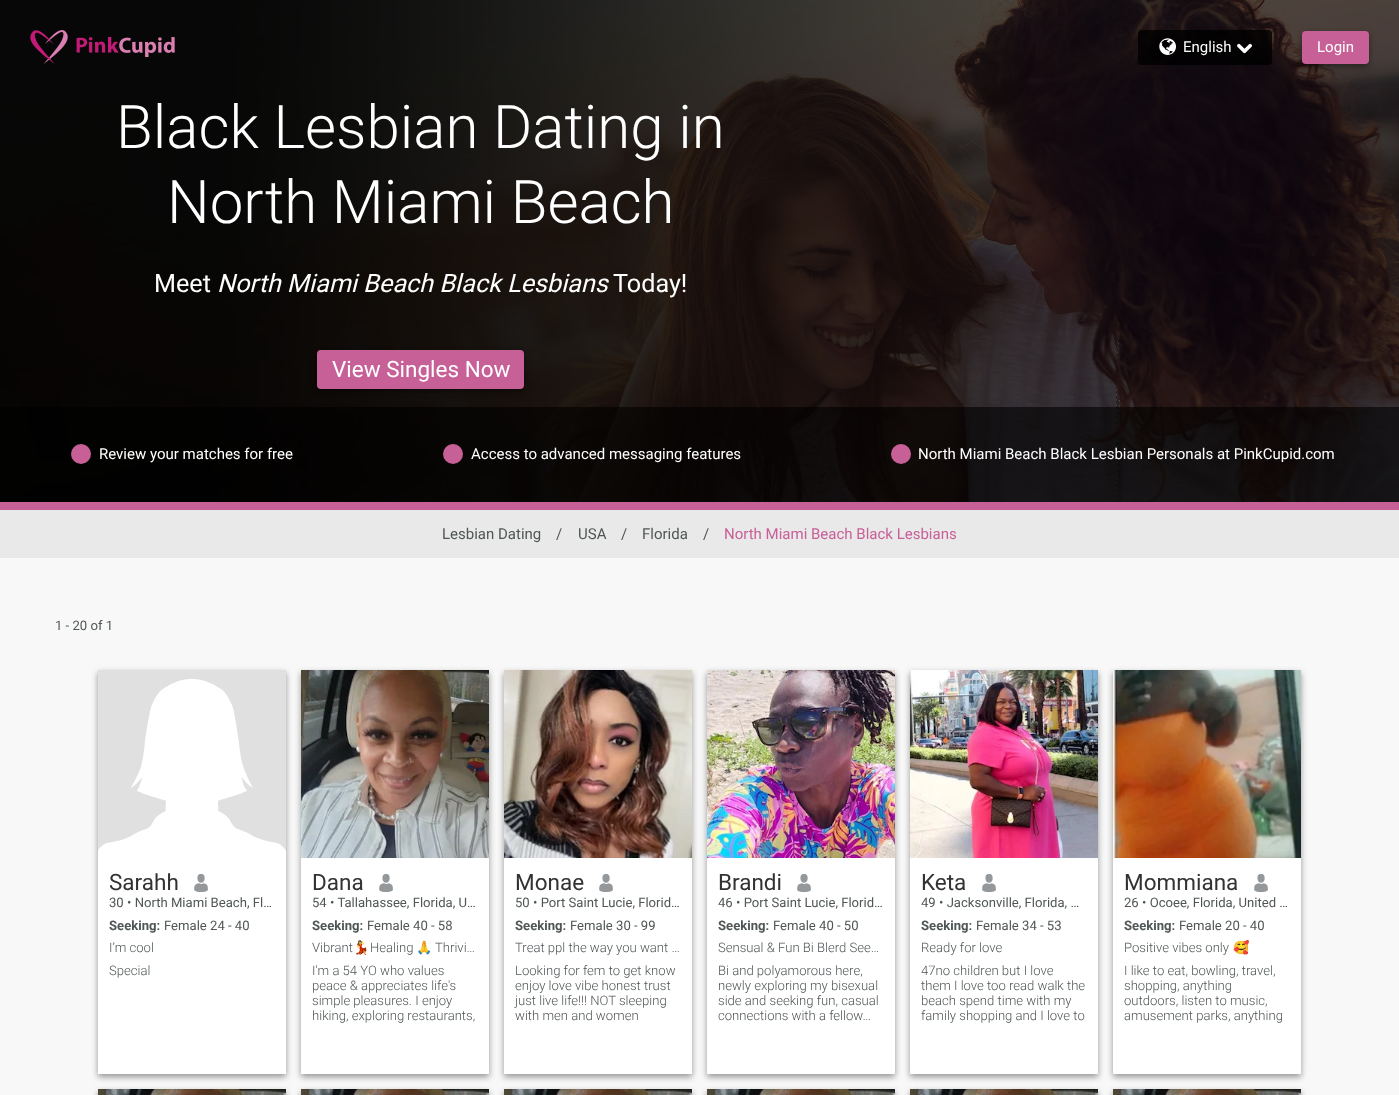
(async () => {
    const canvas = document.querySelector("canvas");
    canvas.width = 1399;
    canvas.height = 1095;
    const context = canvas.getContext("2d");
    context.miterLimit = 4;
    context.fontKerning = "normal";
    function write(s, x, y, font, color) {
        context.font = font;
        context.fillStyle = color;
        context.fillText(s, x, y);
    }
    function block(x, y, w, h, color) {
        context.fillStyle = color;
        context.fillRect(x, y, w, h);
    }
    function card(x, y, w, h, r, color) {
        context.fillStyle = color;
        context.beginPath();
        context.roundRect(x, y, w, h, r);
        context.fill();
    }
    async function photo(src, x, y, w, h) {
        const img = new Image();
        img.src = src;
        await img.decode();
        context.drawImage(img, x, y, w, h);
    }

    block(0, 0, 1399, 1095, "rgb(248, 248, 248)");
    await photo("media/5.png", 0, 0, 1399, 502);
    await photo("media/1.png", 30, 30, 38, 34);
    await photo("media/2.png", 76, 37, 99, 20);
    card(1138, 30, 134, 35, 4, "rgba(0, 0, 0, 0.8)");
    await photo("media/3.png", 1159, 38, 17, 17);
    write("English", 1183, 52, "15px Roboto", "rgb(255, 255, 255)");
    await photo("media/4.png", 1237, 43, 15, 11);
    context.fillStyle = "rgba(0, 0, 0, 0.4)";
    context.filter = "blur(3px)";
    context.beginPath();
    context.roundRect(1302, 34, 67, 33, 4);
    context.fill();
    context.filter = "none";
    card(1302, 31, 67, 33, 4, "rgb(200, 96, 152)");
    write("Login", 1317, 52, "15px Roboto", "rgb(255, 255, 255)");
    write("Black Lesbian Dating in", 116, 148, "300 60px Roboto", "rgb(255, 255, 255)");
    write("North Miami Beach", 167, 223, "300 60px Roboto", "rgb(255, 255, 255)");
    write("Meet", 154, 292, "25.2px Roboto", "rgb(255, 255, 255)");
    write("North Miami Beach Black Lesbians", 217, 292, "italic 25.2px Roboto", "rgb(255, 255, 255)");
    write("Today!", 613, 292, "25.2px Roboto", "rgb(255, 255, 255)");
    context.fillStyle = "rgba(0, 0, 0, 0.4)";
    context.filter = "blur(3px)";
    context.beginPath();
    context.roundRect(317, 353, 207, 39, 4);
    context.fill();
    context.filter = "none";
    card(317, 350, 207, 39, 4, "rgb(200, 96, 152)");
    write("View Singles Now", 332, 377, "22.5px Roboto", "rgb(255, 255, 255)");
    block(0, 407, 1399, 95, "rgba(0, 0, 0, 0.6)");
    context.fillStyle = "rgb(200, 96, 152)";
    context.beginPath();
    context.arc(81, 454, 10, 0, Math.PI * 2);
    context.fill();
    write("Review your matches for free", 99, 459, "15px Roboto", "rgb(255, 255, 255)");
    context.fillStyle = "rgb(200, 96, 152)";
    context.beginPath();
    context.arc(453, 454, 10, 0, Math.PI * 2);
    context.fill();
    write("Access to advanced messaging features", 471, 459, "15px Roboto", "rgb(255, 255, 255)");
    context.fillStyle = "rgb(200, 96, 152)";
    context.beginPath();
    context.arc(901, 454, 10, 0, Math.PI * 2);
    context.fill();
    write("North Miami Beach Black Lesbian Personals at PinkCupid.com", 918, 459, "15px Roboto", "rgb(255, 255, 255)");
    block(0, 502, 1399, 8, "rgb(200, 96, 152)");
    block(0, 510, 1399, 48, "rgb(233, 233, 233)");
    write("Lesbian Dating", 442, 539, "15px Roboto", "rgb(80, 86, 86)");
    write("/", 556, 539, "15px Roboto", "rgb(80, 86, 86)");
    write("USA", 578, 539, "15px Roboto", "rgb(80, 86, 86)");
    write("/", 621, 539, "15px Roboto", "rgb(80, 86, 86)");
    write("Florida", 642, 539, "15px Roboto", "rgb(80, 86, 86)");
    write("/", 703, 539, "15px Roboto", "rgb(80, 86, 86)");
    write("North Miami Beach Black Lesbians", 724, 539, "15px Roboto", "rgb(200, 96, 152)");
    write("1 - 20 of 1", 55, 630, "13.1px Roboto", "rgb(80, 86, 86)");
    context.fillStyle = "rgba(0, 0, 0, 0.4)";
    context.filter = "blur(3px)";
    context.beginPath();
    context.rect(98, 673, 188, 404);
    context.fill();
    context.filter = "none";
    block(98, 858, 188, 216, "rgb(255, 255, 255)");
    block(98, 670, 188, 181, "rgb(224, 224, 224)");
    await photo("media/6.png", 98, 678, 188, 180);
    write("Sarahh", 109, 890, "22.5px Roboto", "rgb(50, 50, 50)");
    await photo("media/7.png", 194, 874, 14, 18);
    write("30 • North Miami Beach, Fl…", 109, 907, "13.1px Roboto", "rgb(80, 86, 86)");
    write("Seeking:", 109, 930, "bold 13.1px Roboto", "rgb(80, 86, 86)");
    write("Female 24 - 40", 164, 930, "13.1px Roboto", "rgb(80, 86, 86)");
    write("I’m cool", 109, 952, "300 13.1px Roboto", "rgb(80, 86, 86)");
    write("Special", 109, 975, "300 13.1px Roboto", "rgb(80, 86, 86)");
    context.fillStyle = "rgba(0, 0, 0, 0.4)";
    context.filter = "blur(3px)";
    context.beginPath();
    context.rect(301, 673, 188, 404);
    context.fill();
    context.filter = "none";
    block(301, 858, 188, 216, "rgb(255, 255, 255)");
    await photo("media/8.png", 301, 670, 188, 188);
    write("Dana", 312, 890, "22.5px Roboto", "rgb(50, 50, 50)");
    await photo("media/7.png", 379, 874, 14, 18);
    write("54 • Tallahassee, Florida, U…", 312, 907, "13.1px Roboto", "rgb(80, 86, 86)");
    write("Seeking:", 312, 930, "bold 13.1px Roboto", "rgb(80, 86, 86)");
    write("Female 40 - 58", 367, 930, "13.1px Roboto", "rgb(80, 86, 86)");
    write("Vibrant", 312, 952, "300 13.1px Roboto", "rgb(80, 86, 86)");
    write("💃️", 353, 952, "13.1px Noto Color Emoji", "rgb(80, 86, 86)");
    write("Healing", 370, 952, "300 13.1px Roboto", "rgb(80, 86, 86)");
    write("🙏", 416, 952, "13.1px Noto Color Emoji", "rgb(80, 86, 86)");
    write("Thrivi…", 435, 952, "300 13.1px Roboto", "rgb(80, 86, 86)");
    write("I'm a 54 YO who values", 312, 975, "300 13.1px Roboto", "rgb(80, 86, 86)");
    write("peace & appreciates life's", 312, 990, "300 13.1px Roboto", "rgb(80, 86, 86)");
    write("simple pleasures. I enjoy", 312, 1005, "300 13.1px Roboto", "rgb(80, 86, 86)");
    write("hiking, exploring restaurants,", 312, 1020, "300 13.1px Roboto", "rgb(80, 86, 86)");
    context.fillStyle = "rgba(0, 0, 0, 0.4)";
    context.filter = "blur(3px)";
    context.beginPath();
    context.rect(504, 673, 188, 404);
    context.fill();
    context.filter = "none";
    block(504, 858, 188, 216, "rgb(255, 255, 255)");
    await photo("media/9.png", 504, 670, 188, 188);
    write("Monae", 515, 890, "22.5px Roboto", "rgb(50, 50, 50)");
    await photo("media/7.png", 599, 874, 14, 18);
    write("50 • Port Saint Lucie, Florid…", 515, 907, "13.1px Roboto", "rgb(80, 86, 86)");
    write("Seeking:", 515, 930, "bold 13.1px Roboto", "rgb(80, 86, 86)");
    write("Female 30 - 99", 570, 930, "13.1px Roboto", "rgb(80, 86, 86)");
    write("Treat ppl the way you want …", 515, 952, "300 13.1px Roboto", "rgb(80, 86, 86)");
    write("Looking for fem to get know", 515, 975, "300 13.1px Roboto", "rgb(80, 86, 86)");
    write("enjoy love vibe honest trust", 515, 990, "300 13.1px Roboto", "rgb(80, 86, 86)");
    write("just live life!!! NOT sleeping", 515, 1005, "300 13.1px Roboto", "rgb(80, 86, 86)");
    write("with men and women", 515, 1020, "300 13.1px Roboto", "rgb(80, 86, 86)");
    context.fillStyle = "rgba(0, 0, 0, 0.4)";
    context.filter = "blur(3px)";
    context.beginPath();
    context.rect(707, 673, 188, 404);
    context.fill();
    context.filter = "none";
    block(707, 858, 188, 216, "rgb(255, 255, 255)");
    await photo("media/10.png", 707, 670, 188, 188);
    write("Brandi", 718, 890, "22.5px Roboto", "rgb(50, 50, 50)");
    await photo("media/7.png", 797, 874, 14, 18);
    write("46 • Port Saint Lucie, Florid…", 718, 907, "13.1px Roboto", "rgb(80, 86, 86)");
    write("Seeking:", 718, 930, "bold 13.1px Roboto", "rgb(80, 86, 86)");
    write("Female 40 - 50", 773, 930, "13.1px Roboto", "rgb(80, 86, 86)");
    write("Sensual & Fun Bi Blerd See…", 718, 952, "300 13.1px Roboto", "rgb(80, 86, 86)");
    write("Bi and polyamorous here,", 718, 975, "300 13.1px Roboto", "rgb(80, 86, 86)");
    write("newly exploring my bisexual", 718, 990, "300 13.1px Roboto", "rgb(80, 86, 86)");
    write("side and seeking fun, casual", 718, 1005, "300 13.1px Roboto", "rgb(80, 86, 86)");
    write("connections with a fellow…", 718, 1020, "300 13.1px Roboto", "rgb(80, 86, 86)");
    context.fillStyle = "rgba(0, 0, 0, 0.4)";
    context.filter = "blur(3px)";
    context.beginPath();
    context.rect(910, 673, 188, 404);
    context.fill();
    context.filter = "none";
    block(910, 858, 188, 216, "rgb(255, 255, 255)");
    await photo("media/11.png", 910, 670, 188, 188);
    write("Keta", 921, 890, "22.5px Roboto", "rgb(50, 50, 50)");
    await photo("media/7.png", 982, 874, 14, 18);
    write("49 • Jacksonville, Florida, …", 921, 907, "13.1px Roboto", "rgb(80, 86, 86)");
    write("Seeking:", 921, 930, "bold 13.1px Roboto", "rgb(80, 86, 86)");
    write("Female 34 - 53", 976, 930, "13.1px Roboto", "rgb(80, 86, 86)");
    write("Ready for love", 921, 952, "300 13.1px Roboto", "rgb(80, 86, 86)");
    write("47no children but I love", 921, 975, "300 13.1px Roboto", "rgb(80, 86, 86)");
    write("them I love too read walk the", 921, 990, "300 13.1px Roboto", "rgb(80, 86, 86)");
    write("beach spend time with my", 921, 1005, "300 13.1px Roboto", "rgb(80, 86, 86)");
    write("family shopping and I love to", 921, 1020, "300 13.1px Roboto", "rgb(80, 86, 86)");
    context.fillStyle = "rgba(0, 0, 0, 0.4)";
    context.filter = "blur(3px)";
    context.beginPath();
    context.rect(1113, 673, 188, 404);
    context.fill();
    context.filter = "none";
    block(1113, 858, 188, 216, "rgb(255, 255, 255)");
    await photo("media/12.png", 1113, 670, 188, 188);
    write("Mommiana", 1124, 890, "22.5px Roboto", "rgb(50, 50, 50)");
    await photo("media/7.png", 1254, 874, 14, 18);
    write("26 • Ocoee, Florida, United …", 1124, 907, "13.1px Roboto", "rgb(80, 86, 86)");
    write("Seeking:", 1124, 930, "bold 13.1px Roboto", "rgb(80, 86, 86)");
    write("Female 20 - 40", 1179, 930, "13.1px Roboto", "rgb(80, 86, 86)");
    write("Positive vibes only", 1124, 952, "300 13.1px Roboto", "rgb(80, 86, 86)");
    write("🥰", 1233, 952, "13.1px Noto Color Emoji", "rgb(80, 86, 86)");
    write("I like to eat, bowling, travel,", 1124, 975, "300 13.1px Roboto", "rgb(80, 86, 86)");
    write("shopping, anything", 1124, 990, "300 13.1px Roboto", "rgb(80, 86, 86)");
    write("outdoors, listen to music,", 1124, 1005, "300 13.1px Roboto", "rgb(80, 86, 86)");
    write("amusement parks, anything", 1124, 1020, "300 13.1px Roboto", "rgb(80, 86, 86)");
    context.fillStyle = "rgba(0, 0, 0, 0.4)";
    context.filter = "blur(3px)";
    context.beginPath();
    context.rect(98, 1092, 188, 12);
    context.fill();
    context.filter = "none";
    await photo("media/13.png", 98, 1089, 188, 6);
    context.filter = "blur(3px)";
    context.beginPath();
    context.rect(301, 1092, 188, 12);
    context.fill();
    context.filter = "none";
    await photo("media/14.png", 301, 1089, 188, 6);
    context.filter = "blur(3px)";
    context.beginPath();
    context.rect(504, 1092, 188, 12);
    context.fill();
    context.filter = "none";
    await photo("media/14.png", 504, 1089, 188, 6);
    context.filter = "blur(3px)";
    context.beginPath();
    context.rect(707, 1092, 188, 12);
    context.fill();
    context.filter = "none";
    await photo("media/14.png", 707, 1089, 188, 6);
    context.filter = "blur(3px)";
    context.beginPath();
    context.rect(910, 1092, 188, 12);
    context.fill();
    context.filter = "none";
    await photo("media/13.png", 910, 1089, 188, 6);
    context.filter = "blur(3px)";
    context.beginPath();
    context.rect(1113, 1092, 188, 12);
    context.fill();
    context.filter = "none";
    await photo("media/13.png", 1113, 1089, 188, 6);
})();
